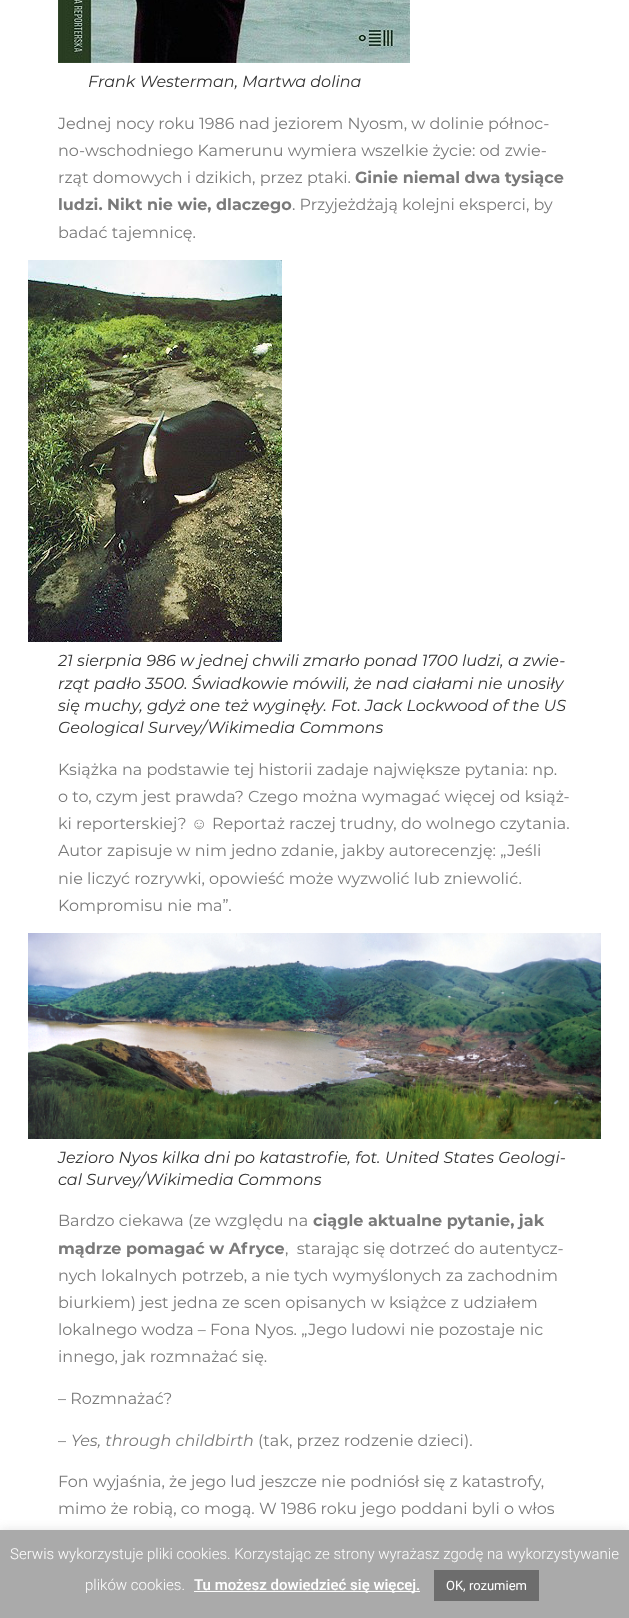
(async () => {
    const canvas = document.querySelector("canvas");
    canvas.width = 629;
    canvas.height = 1618;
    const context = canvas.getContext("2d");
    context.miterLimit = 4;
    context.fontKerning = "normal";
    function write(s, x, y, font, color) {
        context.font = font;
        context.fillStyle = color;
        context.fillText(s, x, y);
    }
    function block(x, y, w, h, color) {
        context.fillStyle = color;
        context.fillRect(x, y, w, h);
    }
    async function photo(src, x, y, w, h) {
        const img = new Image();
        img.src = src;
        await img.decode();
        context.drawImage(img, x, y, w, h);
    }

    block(0, 0, 629, 1618, "rgb(255, 255, 255)");
    await photo("media/1.png", 58, 0, 352, 63);
    write("Frank Westerman, Martwa dolina", 88, 87, "italic 16px Montserrat", "rgb(51, 51, 51)");
    write("Jednej nocy roku 1986 nad jeziorem Nyosm, w dolinie północ-", 58, 129, "16px Montserrat", "rgb(122, 122, 122)");
    write("no-wschodniego Kamerunu wymiera wszelkie życie: od zwie-", 58, 156, "16px Montserrat", "rgb(122, 122, 122)");
    write("rząt domowych i dzikich, przez ptaki.", 58, 183, "16px Montserrat", "rgb(122, 122, 122)");
    write("Ginie niemal dwa tysiące", 355, 183, "bold 16px Montserrat", "rgb(122, 122, 122)");
    write("ludzi. Nikt nie wie, dlaczego", 58, 210, "bold 16px Montserrat", "rgb(122, 122, 122)");
    write(". Przyjeżdżają kolejni eksperci, by", 292, 210, "16px Montserrat", "rgb(122, 122, 122)");
    write("badać tajemnicę.", 58, 238, "16px Montserrat", "rgb(122, 122, 122)");
    await photo("media/2.png", 28, 260, 254, 382);
    write("21 sierpnia 986 w jednej chwili zmarło ponad 1700 ludzi, a zwie-", 58, 666, "italic 16px Montserrat", "rgb(51, 51, 51)");
    write("rząt padło 3500. Świadkowie mówili, że nad ciałami nie unosiły", 58, 689, "italic 16px Montserrat", "rgb(51, 51, 51)");
    write("się muchy, gdyż one też wyginęły. Fot. Jack Lockwood of the US", 58, 711, "italic 16px Montserrat", "rgb(51, 51, 51)");
    write("Geological Survey/Wikimedia Commons", 58, 733, "italic 16px Montserrat", "rgb(51, 51, 51)");
    write("Książka na podstawie tej historii zadaje największe pytania: np.", 58, 775, "16px Montserrat", "rgb(122, 122, 122)");
    write("o to, czym jest prawda? Czego można wymagać więcej od książ-", 58, 802, "16px Montserrat", "rgb(122, 122, 122)");
    write("ki reporterskiej?", 58, 829, "16px Montserrat", "rgb(122, 122, 122)");
    write("☺", 191, 829, "16px Liberation Serif", "rgb(122, 122, 122)");
    write("Reportaż raczej trudny, do wolnego czytania.", 212, 829, "16px Montserrat", "rgb(122, 122, 122)");
    write("Autor zapisuje w nim jedno zdanie, jakby autorecenzję: „Jeśli", 58, 856, "16px Montserrat", "rgb(122, 122, 122)");
    write("nie liczyć rozrywki, opowieść może wyzwolić lub zniewolić.", 58, 884, "16px Montserrat", "rgb(122, 122, 122)");
    write("Kompromisu nie ma”.", 58, 911, "16px Montserrat", "rgb(122, 122, 122)");
    await photo("media/3.png", 28, 933, 573, 206);
    write("Jezioro Nyos kilka dni po katastrofie, fot. United States Geologi-", 58, 1163, "italic 16px Montserrat", "rgb(51, 51, 51)");
    write("cal Survey/Wikimedia Commons", 58, 1185, "italic 16px Montserrat", "rgb(51, 51, 51)");
    write("Bardzo ciekawa (ze względu na", 58, 1226, "16px Montserrat", "rgb(122, 122, 122)");
    write("ciągle aktualne pytanie, jak", 313, 1226, "bold 16px Montserrat", "rgb(122, 122, 122)");
    write("mądrze pomagać w Afryce", 58, 1254, "bold 16px Montserrat", "rgb(122, 122, 122)");
    write(",  starając się dotrzeć do autentycz-", 285, 1254, "16px Montserrat", "rgb(122, 122, 122)");
    write("nych lokalnych potrzeb, a nie tych wymyślonych za zachodnim", 58, 1281, "16px Montserrat", "rgb(122, 122, 122)");
    write("biurkiem) jest jedna ze scen opisanych w książce z udziałem", 58, 1308, "16px Montserrat", "rgb(122, 122, 122)");
    write("lokalnego wodza – Fona Nyos. „Jego ludowi nie pozostaje nic", 58, 1335, "16px Montserrat", "rgb(122, 122, 122)");
    write("innego, jak rozmnażać się.", 58, 1362, "16px Montserrat", "rgb(122, 122, 122)");
    write("– Rozmnażać?", 58, 1404, "16px Montserrat", "rgb(122, 122, 122)");
    write("–", 58, 1446, "16px Montserrat", "rgb(122, 122, 122)");
    write("Yes, through childbirth", 71, 1446, "italic 16px Montserrat", "rgb(122, 122, 122)");
    write("(tak, przez rodzenie dzieci).", 258, 1446, "16px Montserrat", "rgb(122, 122, 122)");
    write("Fon wyjaśnia, że jego lud jeszcze nie podniósł się z katastrofy,", 58, 1487, "16px Montserrat", "rgb(122, 122, 122)");
    write("mimo że robią, co mogą. W 1986 roku jego poddani byli o włos", 58, 1514, "16px Montserrat", "rgb(122, 122, 122)");
    context.fillStyle = "rgba(172, 171, 171, 0.3)";
    context.filter = "blur(5px)";
    context.beginPath();
    context.rect(0, 1529, 629, 88);
    context.fill();
    context.filter = "none";
    block(0, 1530, 629, 88, "rgb(170, 170, 170)");
    write("Serwis wykorzystuje pliki cookies. Korzystając ze strony wyrażasz zgodę na wykorzystywanie", 10, 1559, "300 15px Roboto", "rgb(255, 255, 255)");
    write("plików cookies.", 85, 1590, "300 15px Roboto", "rgb(255, 255, 255)");
    block(194, 1591, 226, 1, "rgb(255, 255, 255)");
    write("Tu możesz dowiedzieć się więcej.", 194, 1590, "500 15px Roboto", "rgb(255, 255, 255)");
    block(434, 1570, 105, 31, "rgb(109, 109, 109)");
    write("OK, rozumiem", 446, 1590, "13px Roboto", "rgb(255, 255, 255)");
})();
